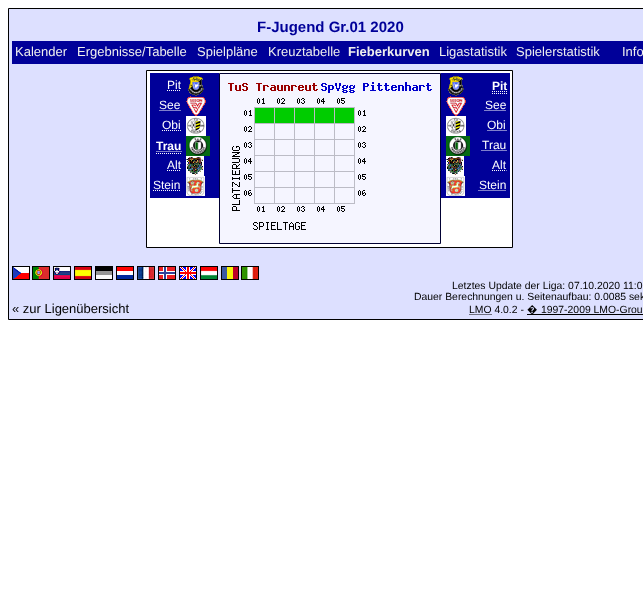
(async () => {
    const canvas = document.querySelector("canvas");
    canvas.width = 643;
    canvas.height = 596;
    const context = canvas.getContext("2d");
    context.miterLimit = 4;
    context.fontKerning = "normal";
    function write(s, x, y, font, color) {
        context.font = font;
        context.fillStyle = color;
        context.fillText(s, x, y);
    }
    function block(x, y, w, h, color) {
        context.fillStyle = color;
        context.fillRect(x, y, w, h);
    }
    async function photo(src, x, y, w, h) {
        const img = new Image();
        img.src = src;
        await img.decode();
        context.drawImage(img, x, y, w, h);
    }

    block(0, 0, 643, 596, "rgb(255, 255, 255)");
    context.fillStyle = "rgb(221, 224, 255)";
    context.beginPath();
    context.rect(8.5, 8.5, 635, 311);
    context.fill();
    context.strokeStyle = "rgb(0, 0, 0)";
    context.stroke();
    write("F-Jugend Gr.01 2020", 257, 32, "bold 15px Liberation Sans", "rgb(0, 0, 153)");
    block(12, 41, 631, 23, "rgb(0, 0, 153)");
    write("Kalender", 15, 56, "13px Liberation Sans", "rgb(238, 238, 238)");
    write("Ergebnisse/Tabelle", 77, 56, "13px Liberation Sans", "rgb(238, 238, 238)");
    write("Spielpläne", 197, 56, "13px Liberation Sans", "rgb(238, 238, 238)");
    write("Kreuztabelle", 268, 56, "13px Liberation Sans", "rgb(238, 238, 238)");
    write("Fieberkurven", 348, 56, "bold 13px Liberation Sans", "rgb(238, 238, 238)");
    write("Ligastatistik", 439, 56, "13px Liberation Sans", "rgb(238, 238, 238)");
    write("Spielerstatistik", 516, 56, "13px Liberation Sans", "rgb(238, 238, 238)");
    write("Info", 622, 56, "13px Liberation Sans", "rgb(238, 238, 238)");
    context.fillStyle = "rgb(255, 255, 255)";
    context.beginPath();
    context.rect(146.5, 70.5, 366, 177);
    context.fill();
    context.stroke();
    block(150, 73, 69, 125, "rgb(0, 0, 153)");
    write("Pit", 167, 89, "12px Liberation Sans", "rgb(255, 255, 255)");
    context.beginPath();
    context.moveTo(167, 90.5);
    context.lineTo(181, 90.5);
    context.strokeStyle = "rgb(255, 255, 255)";
    context.setLineDash([1, 1]);
    context.stroke();
    await photo("media/1.png", 188, 76, 16, 20);
    write("See", 159, 109, "12px Liberation Sans", "rgb(255, 255, 255)");
    context.beginPath();
    context.moveTo(159.5, 110.5);
    context.lineTo(181, 110.5);
    context.stroke();
    await photo("media/2.png", 186, 96, 20, 20);
    write("Obi", 162, 129, "12px Liberation Sans", "rgb(255, 255, 255)");
    context.beginPath();
    context.moveTo(162, 130.5);
    context.lineTo(181, 130.5);
    context.stroke();
    await photo("media/3.png", 186, 116, 20, 20);
    write("Trau", 156, 150, "bold 12px Liberation Sans", "rgb(255, 255, 255)");
    context.beginPath();
    context.moveTo(156, 153.5);
    context.lineTo(182, 153.5);
    context.moveTo(156.5, 151.5);
    context.lineTo(182, 151.5);
    context.stroke();
    await photo("media/4.png", 186, 136, 24, 20);
    write("Alt", 167, 169, "12px Liberation Sans", "rgb(255, 255, 255)");
    context.beginPath();
    context.moveTo(167, 170.5);
    context.lineTo(181, 170.5);
    context.stroke();
    await photo("media/5.png", 186, 156, 18, 20);
    write("Stein", 153, 189, "12px Liberation Sans", "rgb(255, 255, 255)");
    context.beginPath();
    context.moveTo(153, 190.5);
    context.lineTo(181, 190.5);
    context.stroke();
    await photo("media/6.png", 186, 176, 19, 20);
    context.fillStyle = "rgb(245, 245, 255)";
    context.beginPath();
    context.rect(219.5, 73.5, 221, 170);
    context.fill();
    context.strokeStyle = "rgb(0, 0, 51)";
    context.setLineDash([]);
    context.stroke();
    await photo("media/7.png", 228, 82, 204, 148);
    block(441, 73, 69, 125, "rgb(0, 0, 153)");
    await photo("media/1.png", 448, 76, 16, 20);
    write("Pit", 492, 90, "bold 12px Liberation Sans", "rgb(255, 255, 255)");
    context.beginPath();
    context.moveTo(492, 93.5);
    context.lineTo(508, 93.5);
    context.moveTo(492, 91.5);
    context.lineTo(507.5, 91.5);
    context.strokeStyle = "rgb(255, 255, 255)";
    context.setLineDash([1, 1]);
    context.stroke();
    await photo("media/2.png", 446, 96, 20, 20);
    write("See", 485, 109, "12px Liberation Sans", "rgb(255, 255, 255)");
    context.beginPath();
    context.moveTo(484.5, 110.5);
    context.lineTo(506.5, 110.5);
    context.stroke();
    await photo("media/3.png", 446, 116, 20, 20);
    write("Obi", 487, 129, "12px Liberation Sans", "rgb(255, 255, 255)");
    context.beginPath();
    context.moveTo(487.5, 130.5);
    context.lineTo(506.5, 130.5);
    context.stroke();
    await photo("media/4.png", 446, 136, 24, 20);
    write("Trau", 482, 149, "12px Liberation Sans", "rgb(255, 255, 255)");
    context.beginPath();
    context.moveTo(481.5, 150.5);
    context.lineTo(506.5, 150.5);
    context.stroke();
    await photo("media/5.png", 446, 156, 18, 20);
    write("Alt", 492, 169, "12px Liberation Sans", "rgb(255, 255, 255)");
    context.beginPath();
    context.moveTo(492, 170.5);
    context.lineTo(506.5, 170.5);
    context.stroke();
    await photo("media/6.png", 446, 176, 19, 20);
    write("Stein", 479, 189, "12px Liberation Sans", "rgb(255, 255, 255)");
    context.beginPath();
    context.moveTo(478.5, 190.5);
    context.lineTo(506.5, 190.5);
    context.stroke();
    context.strokeStyle = "rgb(0, 0, 0)";
    context.setLineDash([]);
    context.strokeRect(12.5, 266.5, 17, 13);
    context.strokeRect(32.5, 266.5, 17, 13);
    context.strokeRect(53.5, 266.5, 17, 13);
    context.strokeRect(74.5, 266.5, 17, 13);
    context.strokeRect(95.5, 266.5, 17, 13);
    context.strokeRect(116.5, 266.5, 17, 13);
    context.strokeRect(137.5, 266.5, 17, 13);
    context.strokeRect(158.5, 266.5, 17, 13);
    context.strokeRect(179.5, 266.5, 17, 13);
    context.strokeRect(200.5, 266.5, 17, 13);
    context.strokeRect(221.5, 266.5, 17, 13);
    context.strokeRect(241.5, 266.5, 17, 13);
    await photo("media/8.png", 13, 267, 16, 12);
    await photo("media/9.png", 33, 267, 16, 12);
    await photo("media/10.png", 54, 267, 16, 12);
    await photo("media/11.png", 75, 267, 16, 12);
    await photo("media/12.png", 96, 267, 16, 12);
    await photo("media/13.png", 117, 267, 16, 12);
    await photo("media/14.png", 138, 267, 16, 12);
    await photo("media/15.png", 159, 267, 16, 12);
    await photo("media/16.png", 180, 267, 16, 12);
    await photo("media/17.png", 201, 267, 16, 12);
    await photo("media/18.png", 222, 267, 16, 12);
    await photo("media/19.png", 242, 267, 16, 12);
    write("« zur Ligenübersicht", 12, 313, "13px Liberation Sans", "rgb(0, 0, 0)");
    write("Letztes Update der Liga: 07.10.2020 11:0", 452, 289, "10.4px Liberation Sans", "rgb(0, 0, 0)");
    write("Dauer Berechnungen u. Seitenaufbau: 0.0085 sek", 414, 300, "10.4px Liberation Sans", "rgb(0, 0, 0)");
    write("LMO 4.0.2 -", 469, 313, "10.4px Liberation Sans", "rgb(0, 0, 0)");
    context.beginPath();
    context.moveTo(469.5, 314.5);
    context.lineTo(492, 314.5);
    context.setLineDash([1, 1]);
    context.stroke();
    block(527, 314, 116, 1, "rgb(0, 0, 0)");
    write("�", 527, 313, "10.4px Noto Sans", "rgb(0, 0, 0)");
    write("1997-2009 LMO-Grou", 541, 313, "10.4px Liberation Sans", "rgb(0, 0, 0)");
})();
